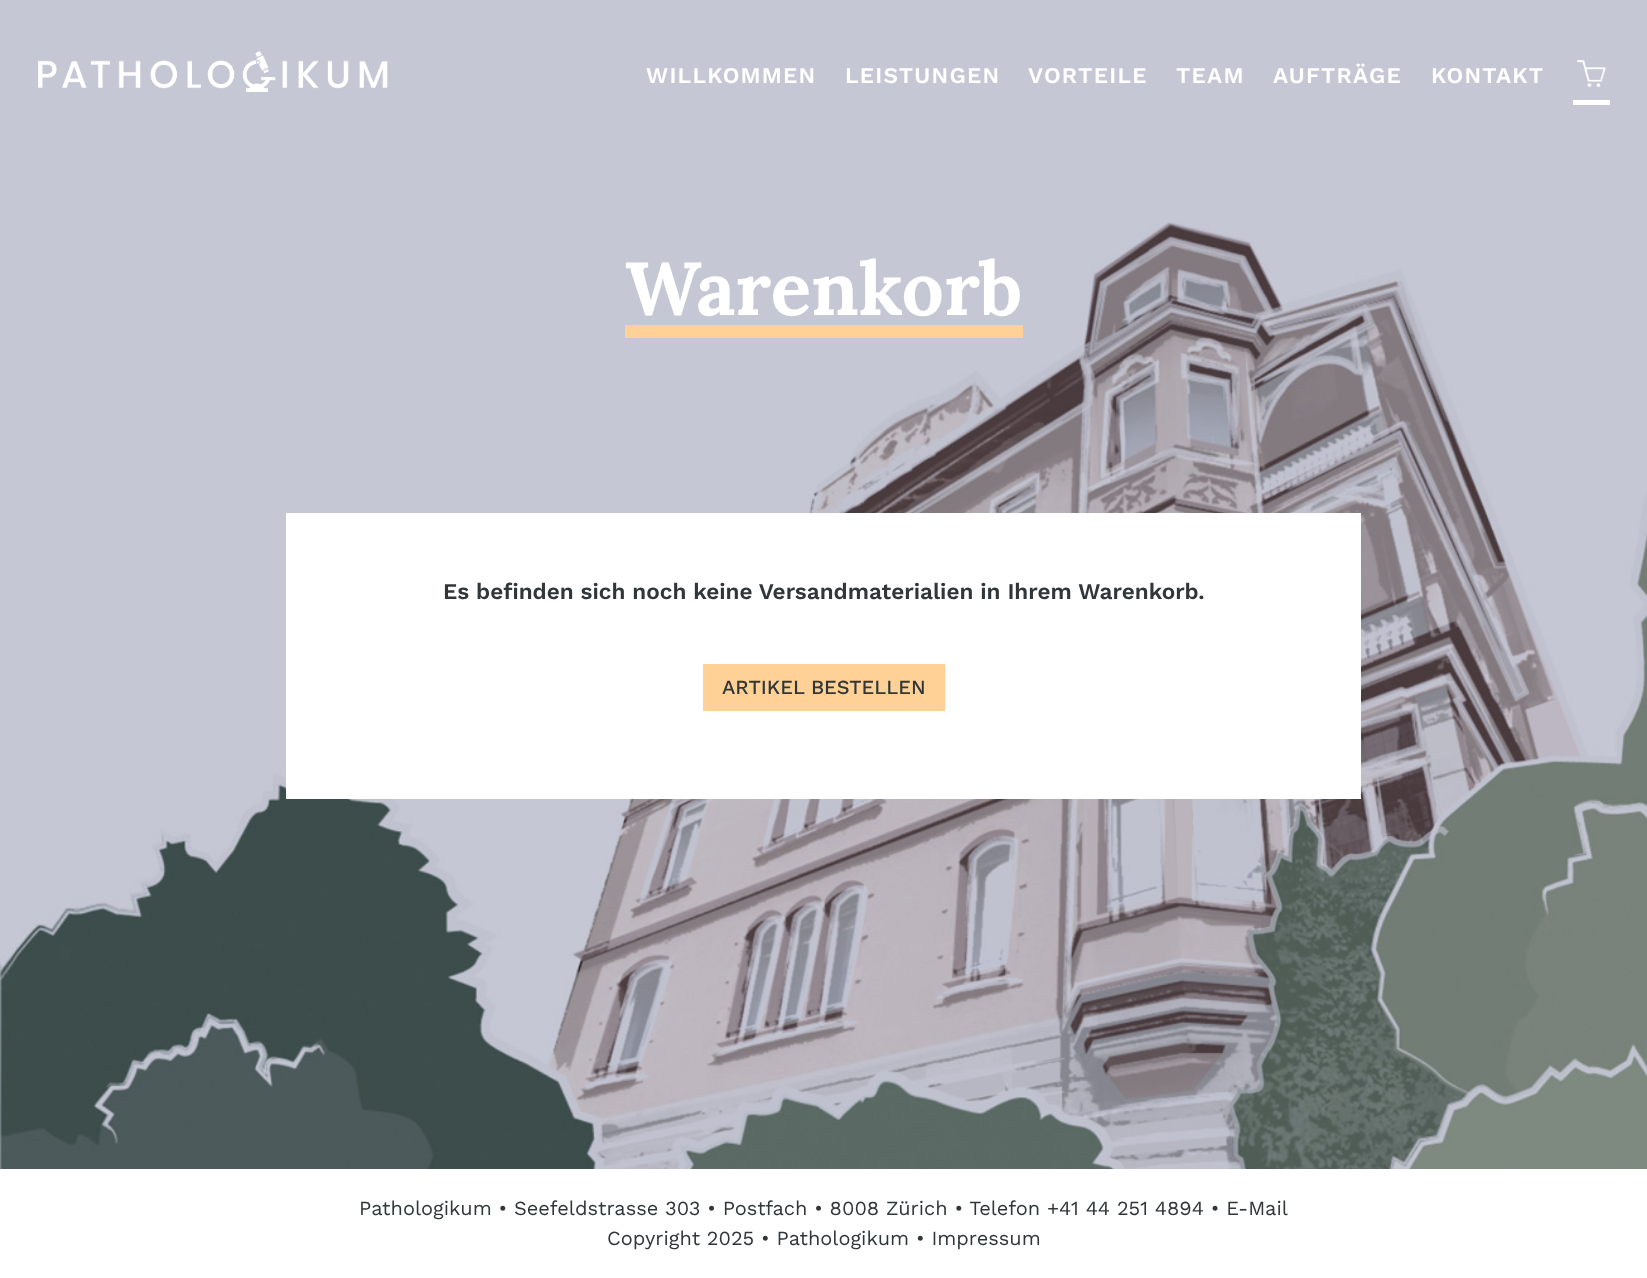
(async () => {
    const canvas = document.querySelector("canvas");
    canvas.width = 1647;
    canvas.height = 1278;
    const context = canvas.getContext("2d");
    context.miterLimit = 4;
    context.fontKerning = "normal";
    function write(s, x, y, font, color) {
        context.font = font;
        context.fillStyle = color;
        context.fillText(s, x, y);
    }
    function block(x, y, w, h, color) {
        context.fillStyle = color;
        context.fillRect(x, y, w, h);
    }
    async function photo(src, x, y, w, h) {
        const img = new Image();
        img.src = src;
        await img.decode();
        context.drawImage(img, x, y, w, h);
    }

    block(0, 0, 1647, 1278, "rgb(197, 199, 212)");
    await photo("media/1.png", 0, 222, 1647, 947);
    await photo("media/2.png", 38, 51, 350, 41);
    context.letterSpacing = "1.25px";
    write("WILLKOMMEN", 646, 83, "600 22.5px Work Sans", "rgb(255, 255, 255)");
    write("LEISTUNGEN", 845, 83, "600 22.5px Work Sans", "rgb(255, 255, 255)");
    write("VORTEILE", 1028, 83, "600 22.5px Work Sans", "rgb(255, 255, 255)");
    write("TEAM", 1176, 83, "600 22.5px Work Sans", "rgb(255, 255, 255)");
    write("AUFTRÄGE", 1273, 83, "600 22.5px Work Sans", "rgb(255, 255, 255)");
    write("KONTAKT", 1431, 83, "600 22.5px Work Sans", "rgb(255, 255, 255)");
    block(1573, 100, 37, 5, "rgb(255, 255, 255)");
    await photo("media/3.png", 1577, 60, 29, 28);
    block(625, 325, 398, 13, "rgb(255, 209, 150)");
    context.letterSpacing = "0px";
    write("Warenkorb", 625, 315, "bold 75px Lora", "rgb(255, 255, 255)");
    block(286, 513, 1075, 286, "rgb(255, 255, 255)");
    write("Es befinden sich noch keine Versandmaterialien in Ihrem Warenkorb.", 443, 599, "600 22.5px Work Sans", "rgb(49, 54, 57)");
    block(703, 664, 242, 47, "rgb(255, 209, 150)");
    write("ARTIKEL BESTELLEN", 722, 694, "500 20px Work Sans", "rgb(49, 54, 57)");
    block(0, 1169, 1647, 109, "rgb(255, 255, 255)");
    write("Pathologikum • Seefeldstrasse 303 • Postfach • 8008 Zürich • Telefon +41 44 251 4894 • E-Mail", 359, 1215, "20px Work Sans", "rgb(49, 54, 57)");
    write("Copyright 2025 • Pathologikum • Impressum", 607, 1245, "20px Work Sans", "rgb(49, 54, 57)");
})();
